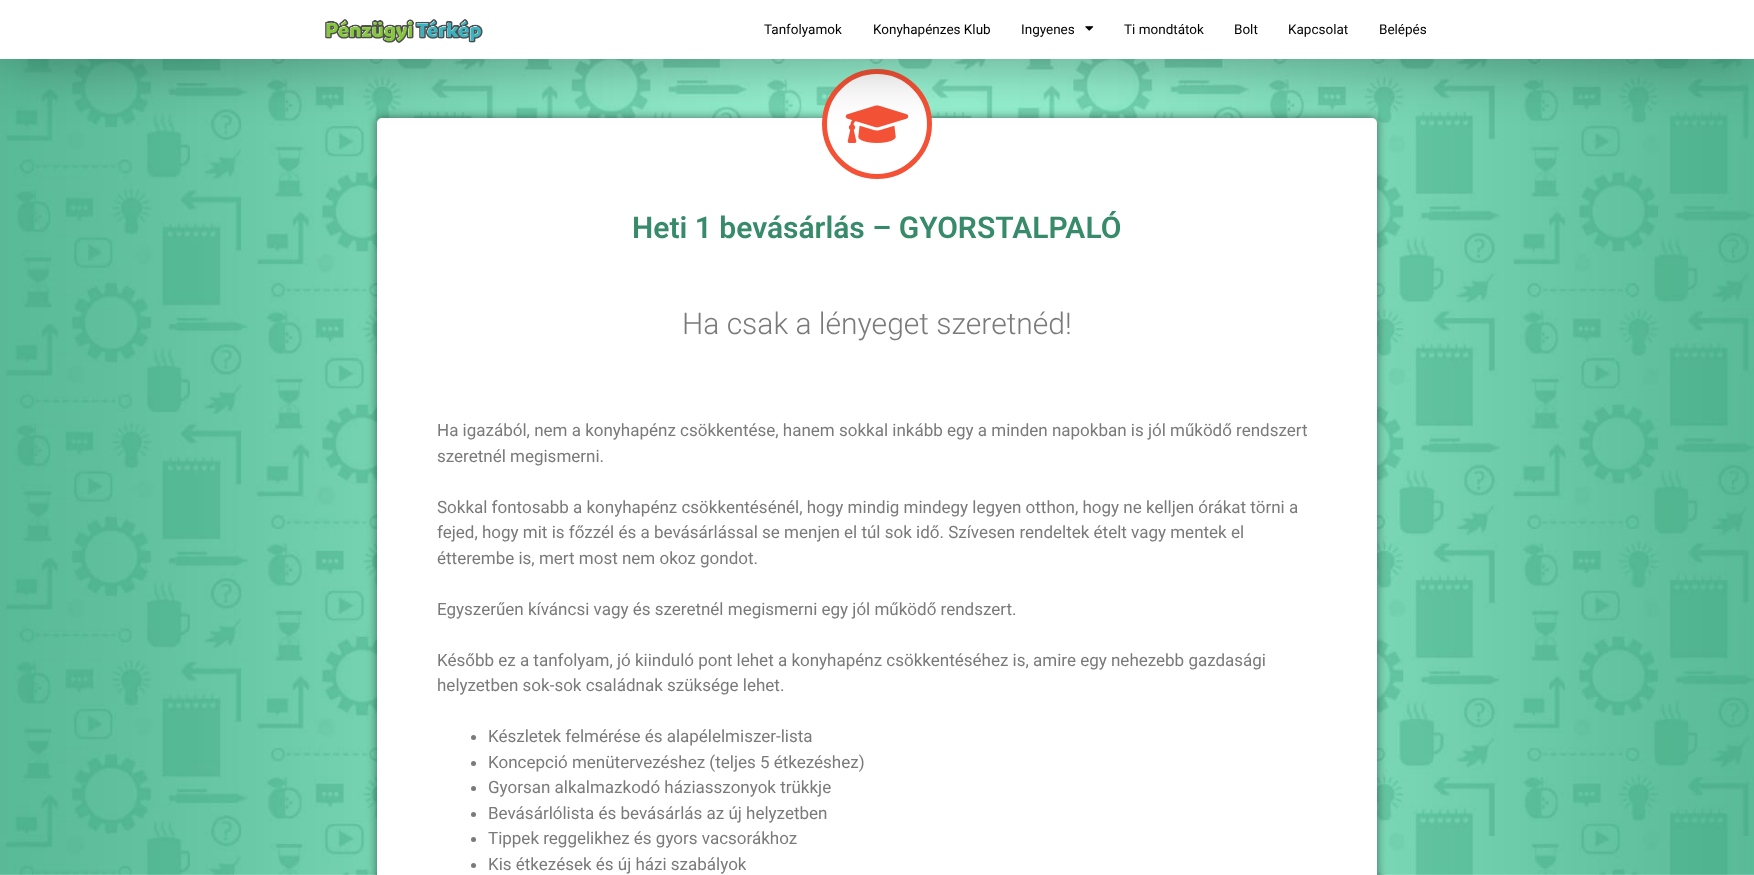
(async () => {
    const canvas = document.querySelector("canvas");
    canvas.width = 1754;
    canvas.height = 875;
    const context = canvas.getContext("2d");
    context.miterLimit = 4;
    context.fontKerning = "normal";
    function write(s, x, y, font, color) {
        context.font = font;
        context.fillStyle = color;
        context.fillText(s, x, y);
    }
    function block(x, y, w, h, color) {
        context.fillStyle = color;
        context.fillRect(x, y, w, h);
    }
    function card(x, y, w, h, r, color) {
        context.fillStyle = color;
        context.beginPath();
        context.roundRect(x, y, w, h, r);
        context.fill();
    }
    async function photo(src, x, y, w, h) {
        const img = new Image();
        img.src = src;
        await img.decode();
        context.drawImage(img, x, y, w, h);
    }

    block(0, 0, 1754, 875, "rgb(255, 255, 255)");
    await photo("media/3.png", 0, 59, 1754, 816);
    context.fillStyle = "rgba(0, 0, 0, 0.5)";
    context.filter = "blur(5px)";
    context.beginPath();
    context.roundRect(377, 118, 1000, 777, 5);
    context.fill();
    context.filter = "none";
    card(377, 118, 1000, 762, 5, "rgb(255, 255, 255)");
    context.beginPath();
    context.arc(877, 124, 52.5, 0, Math.PI * 2);
    context.fill();
    context.strokeStyle = "rgb(244, 82, 54)";
    context.lineWidth = 5;
    context.stroke();
    await photo("media/4.png", 845, 105, 64, 38);
    context.fillStyle = "rgba(0, 0, 0, 0.35)";
    context.filter = "blur(30px)";
    context.beginPath();
    context.rect(0, 0, 1754, 59);
    context.fill();
    context.filter = "none";
    block(0, 0, 1754, 59, "rgb(255, 255, 255)");
    await photo("media/1.png", 325, 19, 158, 24);
    write("Tanfolyamok", 764, 34, "13.5px Roboto", "rgb(0, 0, 0)");
    write("Konyhapénzes Klub", 873, 34, "13.5px Roboto", "rgb(0, 0, 0)");
    write("Ingyenes", 1021, 34, "13.5px Roboto", "rgb(0, 0, 0)");
    await photo("media/2.png", 1085, 26, 9, 5);
    write("Ti mondtátok", 1124, 34, "13.5px Roboto", "rgb(0, 0, 0)");
    write("Bolt", 1234, 34, "13.5px Roboto", "rgb(0, 0, 0)");
    write("Kapcsolat", 1288, 34, "13.5px Roboto", "rgb(0, 0, 0)");
    write("Belépés", 1379, 34, "13.5px Roboto", "rgb(0, 0, 0)");
    write("Heti 1 bevásárlás – GYORSTALPALÓ", 632, 238, "600 30px Roboto", "rgb(55, 139, 107)");
    write("Ha csak a lényeget szeretnéd!", 682, 334, "300 30px Roboto", "rgb(122, 122, 122)");
    write("Ha igazából, nem a konyhapénz csökkentése, hanem sokkal inkább egy a minden napokban is jól működő rendszert", 437, 436, "17px Roboto", "rgb(122, 122, 122)");
    write("szeretnél megismerni.", 437, 462, "17px Roboto", "rgb(122, 122, 122)");
    write("Sokkal fontosabb a konyhapénz csökkentésénél, hogy mindig mindegy legyen otthon, hogy ne kelljen órákat törni a", 437, 513, "17px Roboto", "rgb(122, 122, 122)");
    write("fejed, hogy mit is főzzél és a bevásárlással se menjen el túl sok idő. Szívesen rendeltek ételt vagy mentek el", 437, 538, "17px Roboto", "rgb(122, 122, 122)");
    write("étterembe is, mert most nem okoz gondot.", 437, 564, "17px Roboto", "rgb(122, 122, 122)");
    write("Egyszerűen kíváncsi vagy és szeretnél megismerni egy jól működő rendszert.", 437, 615, "17px Roboto", "rgb(122, 122, 122)");
    write("Később ez a tanfolyam, jó kiinduló pont lehet a konyhapénz csökkentéséhez is, amire egy nehezebb gazdasági", 437, 666, "17px Roboto", "rgb(122, 122, 122)");
    write("helyzetben sok-sok családnak szüksége lehet.", 437, 691, "17px Roboto", "rgb(122, 122, 122)");
    context.beginPath();
    context.arc(473.5, 737.5, 2.5, 0, Math.PI * 2);
    context.fill();
    write("Készletek felmérése és alapélelmiszer-lista", 488, 742, "17px Roboto", "rgb(122, 122, 122)");
    context.beginPath();
    context.arc(473.5, 763.5, 2.5, 0, Math.PI * 2);
    context.fill();
    write("Koncepció menütervezéshez (teljes 5 étkezéshez)", 488, 768, "17px Roboto", "rgb(122, 122, 122)");
    context.beginPath();
    context.arc(473.5, 788.5, 2.5, 0, Math.PI * 2);
    context.fill();
    write("Gyorsan alkalmazkodó háziasszonyok trükkje", 488, 793, "17px Roboto", "rgb(122, 122, 122)");
    context.beginPath();
    context.arc(473.5, 814.5, 2.5, 0, Math.PI * 2);
    context.fill();
    write("Bevásárlólista és bevásárlás az új helyzetben", 488, 819, "17px Roboto", "rgb(122, 122, 122)");
    context.beginPath();
    context.arc(473.5, 839.5, 2.5, 0, Math.PI * 2);
    context.fill();
    write("Tippek reggelikhez és gyors vacsorákhoz", 488, 844, "17px Roboto", "rgb(122, 122, 122)");
    context.beginPath();
    context.arc(473.5, 865.5, 2.5, 0, Math.PI * 2);
    context.fill();
    write("Kis étkezések és új házi szabályok", 488, 870, "17px Roboto", "rgb(122, 122, 122)");
})();
